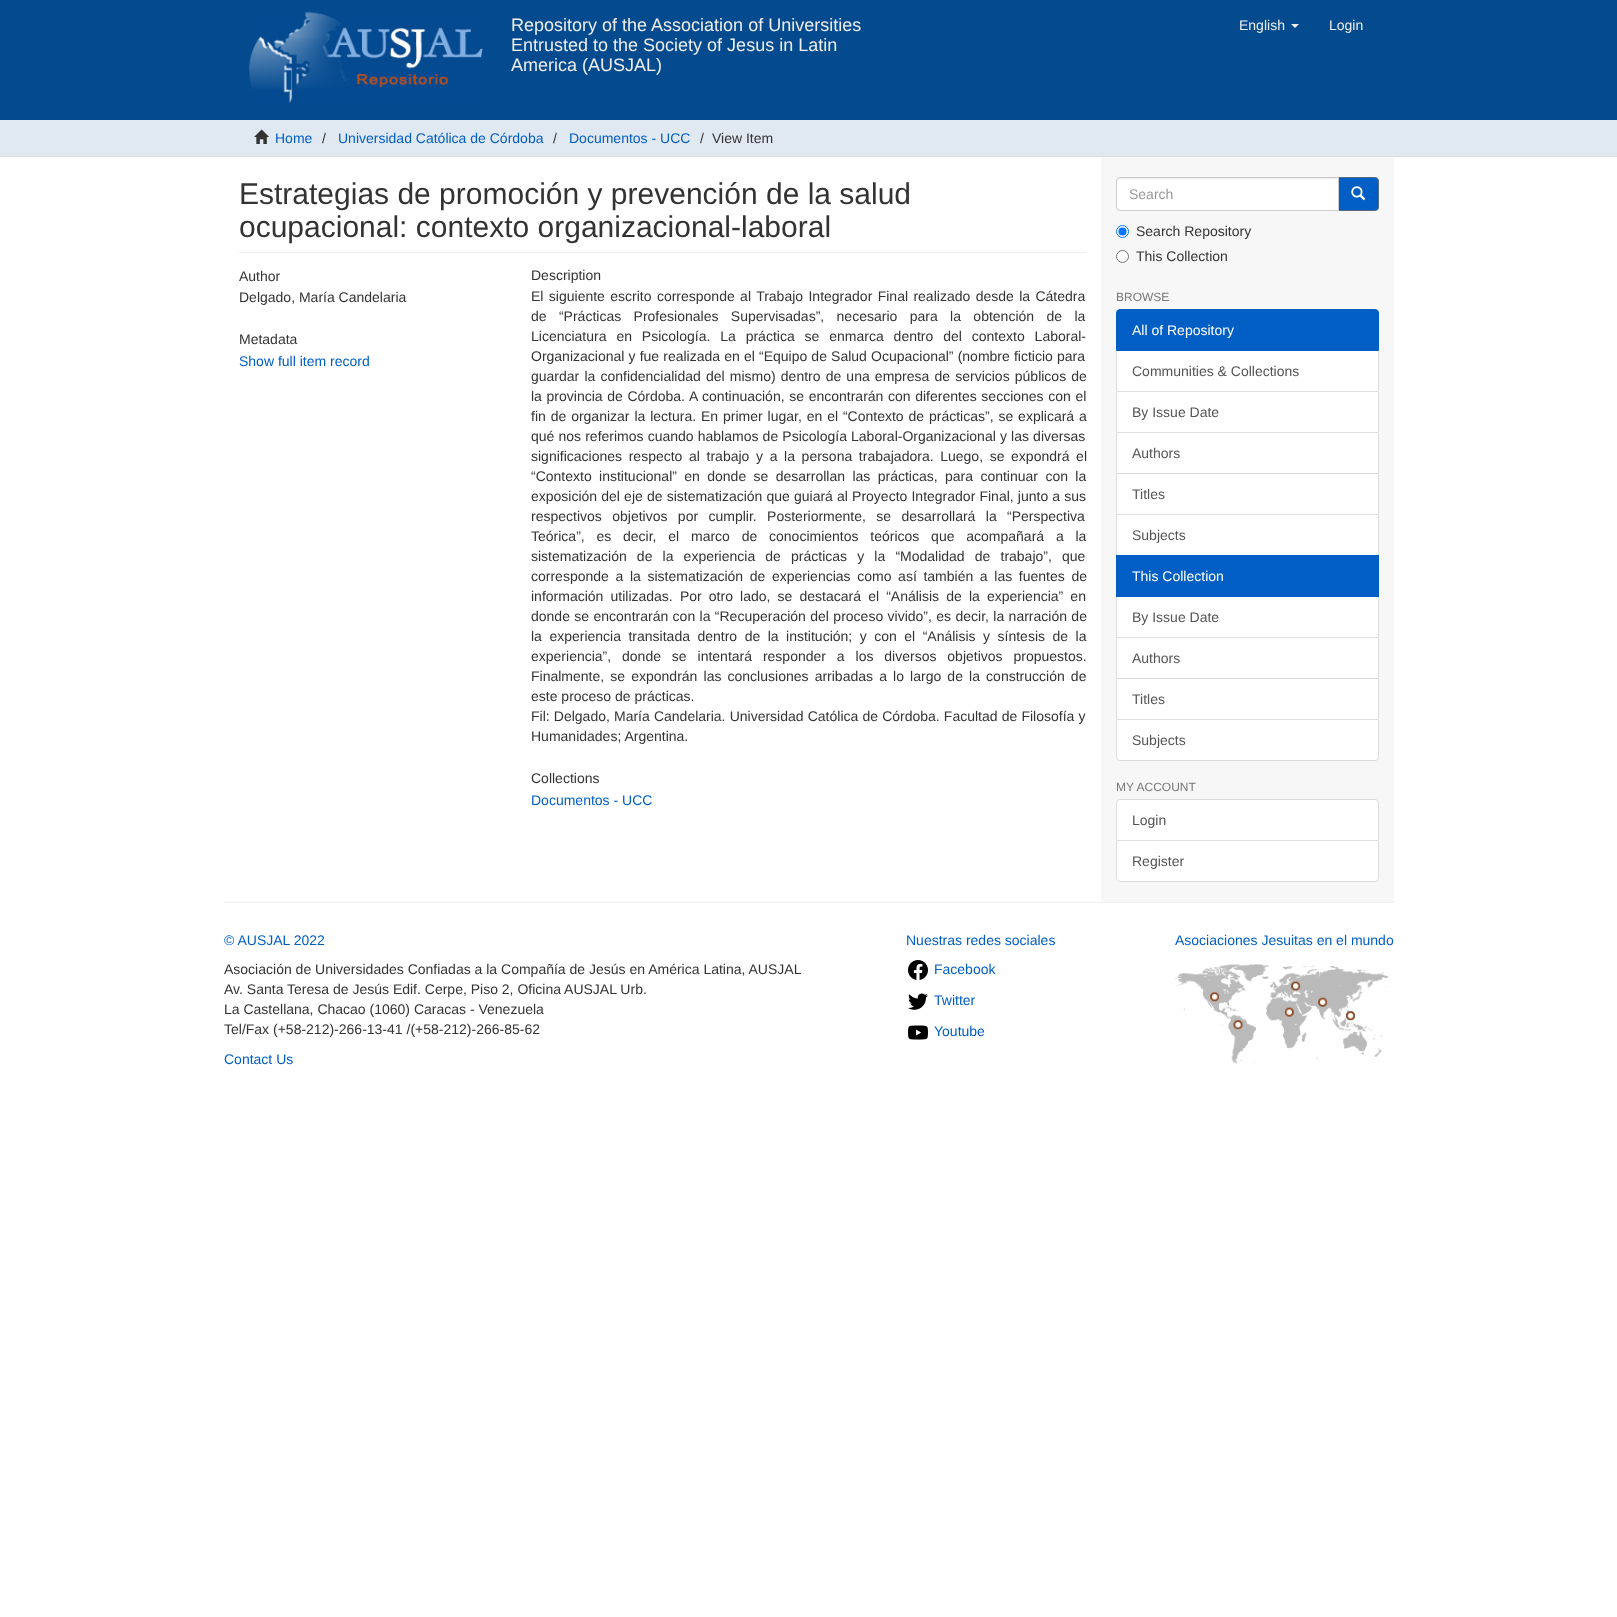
(async () => {
    const canvas = document.querySelector("canvas");
    canvas.width = 1617;
    canvas.height = 1617;
    const context = canvas.getContext("2d");
    context.miterLimit = 4;
    context.fontKerning = "normal";
    function write(s, x, y, font, color) {
        context.font = font;
        context.fillStyle = color;
        context.fillText(s, x, y);
    }
    function block(x, y, w, h, color) {
        context.fillStyle = color;
        context.fillRect(x, y, w, h);
    }
    async function photo(src, x, y, w, h) {
        const img = new Image();
        img.src = src;
        await img.decode();
        context.drawImage(img, x, y, w, h);
    }

    block(0, 0, 1617, 1617, "rgb(255, 255, 255)");
    block(0, 0, 1617, 120, "rgb(4, 74, 143)");
    await photo("media/1.png", 249, 11, 234, 92);
    write("Repository of the Association of Universities", 511, 31, "18px Liberation Sans", "rgb(238, 238, 238)");
    write("Entrusted to the Society of Jesus in Latin", 511, 51, "18px Liberation Sans", "rgb(238, 238, 238)");
    write("America (AUSJAL)", 511, 71, "18px Liberation Sans", "rgb(238, 238, 238)");
    write("English", 1239, 30, "14px Liberation Sans", "rgb(238, 238, 238)");
    context.beginPath();
    context.moveTo(1291, 24);
    context.lineTo(1299, 24);
    context.lineTo(1295, 28);
    context.closePath();
    context.fill();
    write("Login", 1329, 30, "14px Liberation Sans", "rgb(238, 238, 238)");
    block(0, 120, 1617, 36, "rgb(224, 233, 242)");
    block(0, 156, 1617, 1, "rgb(221, 221, 221)");
    await photo("media/2.png", 254, 129, 15, 15);
    write("Home", 275, 143, "14px Liberation Sans", "rgb(0, 94, 196)");
    write("/", 322, 143, "14px Liberation Sans", "rgb(51, 51, 51)");
    write("Universidad Católica de Córdoba", 338, 143, "14px Liberation Sans", "rgb(0, 94, 196)");
    write("/", 553, 143, "14px Liberation Sans", "rgb(51, 51, 51)");
    write("Documentos - UCC", 569, 143, "14px Liberation Sans", "rgb(0, 94, 196)");
    write("/", 700, 143, "14px Liberation Sans", "rgb(51, 51, 51)");
    write("View Item", 712, 143, "14px Liberation Sans", "rgb(51, 51, 51)");
    block(1101, 157, 293, 745, "rgb(247, 247, 247)");
    block(239, 252, 847, 1, "rgb(238, 238, 238)");
    write("Estrategias de promoción y prevención de la salud", 239, 204, "30px Liberation Sans", "rgb(51, 51, 51)");
    write("ocupacional: contexto organizacional-laboral", 239, 237, "30px Liberation Sans", "rgb(51, 51, 51)");
    write("Author", 239, 281, "14px Liberation Sans", "rgb(51, 51, 51)");
    write("Delgado, María Candelaria", 239, 302, "14px Liberation Sans", "rgb(51, 51, 51)");
    write("Metadata", 239, 344, "14px Liberation Sans", "rgb(51, 51, 51)");
    write("Show full item record", 239, 366, "14px Liberation Sans", "rgb(0, 94, 196)");
    write("Description", 531, 280, "14px Liberation Sans", "rgb(51, 51, 51)");
    context.wordSpacing = "1.5px";
    write("El siguiente escrito corresponde al Trabajo Integrador Final realizado desde la Cátedra", 531, 301, "14px Liberation Sans", "rgb(51, 51, 51)");
    context.wordSpacing = "8.5px";
    write("de “Prácticas Profesionales Supervisadas”, necesario para la obtención de la", 531, 321, "14px Liberation Sans", "rgb(51, 51, 51)");
    context.wordSpacing = "6px";
    write("Licenciatura en Psicología. La práctica se enmarca dentro del contexto Laboral-", 531, 341, "14px Liberation Sans", "rgb(51, 51, 51)");
    context.wordSpacing = "0.25px";
    write("Organizacional y fue realizada en el “Equipo de Salud Ocupacional” (nombre ficticio para", 531, 361, "14px Liberation Sans", "rgb(51, 51, 51)");
    context.wordSpacing = "1.25px";
    write("guardar la confidencialidad del mismo) dentro de una empresa de servicios públicos de", 531, 381, "14px Liberation Sans", "rgb(51, 51, 51)");
    context.wordSpacing = "0.75px";
    write("la provincia de Córdoba. A continuación, se encontrarán con diferentes secciones con el", 531, 401, "14px Liberation Sans", "rgb(51, 51, 51)");
    context.wordSpacing = "1px";
    write("fin de organizar la lectura. En primer lugar, en el “Contexto de prácticas”, se explicará a", 531, 421, "14px Liberation Sans", "rgb(51, 51, 51)");
    context.wordSpacing = "0.25px";
    write("qué nos referimos cuando hablamos de Psicología Laboral-Organizacional y las diversas", 531, 441, "14px Liberation Sans", "rgb(51, 51, 51)");
    context.wordSpacing = "2.75px";
    write("significaciones respecto al trabajo y a la persona trabajadora. Luego, se expondrá el", 531, 461, "14px Liberation Sans", "rgb(51, 51, 51)");
    context.wordSpacing = "3.5px";
    write("“Contexto institucional” en donde se desarrollan las prácticas, para continuar con la", 531, 481, "14px Liberation Sans", "rgb(51, 51, 51)");
    context.wordSpacing = "0.25px";
    write("exposición del eje de sistematización que guiará al Proyecto Integrador Final, junto a sus", 531, 501, "14px Liberation Sans", "rgb(51, 51, 51)");
    context.wordSpacing = "6.5px";
    write("respectivos objetivos por cumplir. Posteriormente, se desarrollará la “Perspectiva", 531, 521, "14px Liberation Sans", "rgb(51, 51, 51)");
    context.wordSpacing = "7.9px";
    write("Teórica”, es decir, el marco de conocimientos teóricos que acompañará a la", 531, 541, "14px Liberation Sans", "rgb(51, 51, 51)");
    context.wordSpacing = "6.25px";
    write("sistematización de la experiencia de prácticas y la “Modalidad de trabajo”, que", 531, 561, "14px Liberation Sans", "rgb(51, 51, 51)");
    context.wordSpacing = "2.75px";
    write("corresponde a la sistematización de experiencias como así también a las fuentes de", 531, 581, "14px Liberation Sans", "rgb(51, 51, 51)");
    context.wordSpacing = "3.25px";
    write("información utilizadas. Por otro lado, se destacará el “Análisis de la experiencia” en", 531, 601, "14px Liberation Sans", "rgb(51, 51, 51)");
    context.wordSpacing = "0.5px";
    write("donde se encontrarán con la “Recuperación del proceso vivido”, es decir, la narración de", 531, 621, "14px Liberation Sans", "rgb(51, 51, 51)");
    context.wordSpacing = "3.6px";
    write("la experiencia transitada dentro de la institución; y con el “Análisis y síntesis de la", 531, 641, "14px Liberation Sans", "rgb(51, 51, 51)");
    context.wordSpacing = "7px";
    write("experiencia”, donde se intentará responder a los diversos objetivos propuestos.", 531, 661, "14px Liberation Sans", "rgb(51, 51, 51)");
    context.wordSpacing = "2.25px";
    write("Finalmente, se expondrán las conclusiones arribadas a lo largo de la construcción de", 531, 681, "14px Liberation Sans", "rgb(51, 51, 51)");
    context.wordSpacing = "0px";
    write("este proceso de prácticas.", 531, 701, "14px Liberation Sans", "rgb(51, 51, 51)");
    context.wordSpacing = "0.25px";
    write("Fil: Delgado, María Candelaria. Universidad Católica de Córdoba. Facultad de Filosofía y", 531, 721, "14px Liberation Sans", "rgb(51, 51, 51)");
    context.wordSpacing = "0px";
    write("Humanidades; Argentina.", 531, 741, "14px Liberation Sans", "rgb(51, 51, 51)");
    write("Collections", 531, 783, "14px Liberation Sans", "rgb(51, 51, 51)");
    write("Documentos - UCC", 531, 805, "14px Liberation Sans", "rgb(0, 94, 196)");
    context.beginPath();
    context.roundRect(1338.5, 177.5, 40, 33, [0, 3.5, 3.5, 0]);
    context.fill();
    context.strokeStyle = "rgb(86, 107, 129)";
    context.stroke();
    context.fillStyle = "rgb(255, 255, 255)";
    context.beginPath();
    context.roundRect(1116, 177, 223, 34, [4, 0, 0, 4]);
    context.fill();
    context.fillStyle = "rgb(236, 236, 236)";
    context.beginPath();
    context.moveTo(1120, 179);
    context.lineTo(1338, 179);
    context.lineTo(1338, 178);
    context.lineTo(1120, 178);
    context.bezierCurveTo(1118, 178, 1117, 179, 1117, 181);
    context.lineTo(1117, 182);
    context.bezierCurveTo(1117, 180, 1118, 179, 1120, 179);
    context.closePath();
    context.fill();
    context.beginPath();
    context.roundRect(1116.5, 177.5, 222, 33, [3.5, 0, 0, 3.5]);
    context.strokeStyle = "rgb(204, 204, 204)";
    context.stroke();
    write("Search", 1129, 199, "14px Liberation Sans", "rgb(153, 153, 153)");
    await photo("media/3.png", 1351, 186, 15, 15);
    context.fillStyle = "rgb(255, 255, 255)";
    context.beginPath();
    context.arc(1122.5, 231.5, 6, 0, Math.PI * 2);
    context.fill();
    context.strokeStyle = "rgb(0, 117, 255)";
    context.stroke();
    context.fillStyle = "rgb(0, 117, 255)";
    context.beginPath();
    context.arc(1122.5, 231.5, 4, 0, Math.PI * 2);
    context.fill();
    write("Search Repository", 1136, 236, "14px Liberation Sans", "rgb(51, 51, 51)");
    context.fillStyle = "rgb(255, 255, 255)";
    context.beginPath();
    context.arc(1122.5, 256.5, 6, 0, Math.PI * 2);
    context.fill();
    context.strokeStyle = "rgb(118, 118, 118)";
    context.stroke();
    write("This Collection", 1136, 261, "14px Liberation Sans", "rgb(51, 51, 51)");
    write("BROWSE", 1116, 301, "12px Liberation Sans", "rgb(119, 119, 119)");
    context.fillStyle = "rgb(255, 255, 255)";
    context.beginPath();
    context.rect(1116.5, 350.5, 262, 41);
    context.fill();
    context.strokeStyle = "rgb(221, 221, 221)";
    context.stroke();
    context.fillStyle = "rgb(0, 94, 196)";
    context.beginPath();
    context.roundRect(1116.5, 309.5, 262, 41, [3.5, 3.5, 0, 0]);
    context.fill();
    context.strokeStyle = "rgb(0, 94, 196)";
    context.stroke();
    write("All of Repository", 1132, 335, "14px Liberation Sans", "rgb(255, 255, 255)");
    write("Communities & Collections", 1132, 376, "14px Liberation Sans", "rgb(85, 85, 85)");
    context.fillStyle = "rgb(255, 255, 255)";
    context.beginPath();
    context.rect(1116.5, 391.5, 262, 41);
    context.fill();
    context.strokeStyle = "rgb(221, 221, 221)";
    context.stroke();
    write("By Issue Date", 1132, 417, "14px Liberation Sans", "rgb(85, 85, 85)");
    context.fillStyle = "rgb(255, 255, 255)";
    context.beginPath();
    context.rect(1116.5, 432.5, 262, 41);
    context.fill();
    context.stroke();
    write("Authors", 1132, 458, "14px Liberation Sans", "rgb(85, 85, 85)");
    context.fillStyle = "rgb(255, 255, 255)";
    context.beginPath();
    context.rect(1116.5, 473.5, 262, 41);
    context.fill();
    context.stroke();
    write("Titles", 1132, 499, "14px Liberation Sans", "rgb(85, 85, 85)");
    context.fillStyle = "rgb(255, 255, 255)";
    context.beginPath();
    context.rect(1116.5, 514.5, 262, 41);
    context.fill();
    context.stroke();
    write("Subjects", 1132, 540, "14px Liberation Sans", "rgb(85, 85, 85)");
    context.fillStyle = "rgb(255, 255, 255)";
    context.beginPath();
    context.rect(1116.5, 596.5, 262, 41);
    context.fill();
    context.stroke();
    block(1116, 555, 263, 42, "rgb(0, 94, 196)");
    write("This Collection", 1132, 581, "14px Liberation Sans", "rgb(255, 255, 255)");
    write("By Issue Date", 1132, 622, "14px Liberation Sans", "rgb(85, 85, 85)");
    context.fillStyle = "rgb(255, 255, 255)";
    context.beginPath();
    context.rect(1116.5, 637.5, 262, 41);
    context.fill();
    context.stroke();
    write("Authors", 1132, 663, "14px Liberation Sans", "rgb(85, 85, 85)");
    context.fillStyle = "rgb(255, 255, 255)";
    context.beginPath();
    context.rect(1116.5, 678.5, 262, 41);
    context.fill();
    context.stroke();
    write("Titles", 1132, 704, "14px Liberation Sans", "rgb(85, 85, 85)");
    context.fillStyle = "rgb(255, 255, 255)";
    context.beginPath();
    context.roundRect(1116.5, 719.5, 262, 41, [0, 0, 3.5, 3.5]);
    context.fill();
    context.stroke();
    write("Subjects", 1132, 745, "14px Liberation Sans", "rgb(85, 85, 85)");
    write("MY ACCOUNT", 1116, 791, "12px Liberation Sans", "rgb(119, 119, 119)");
    context.fillStyle = "rgb(255, 255, 255)";
    context.beginPath();
    context.roundRect(1116.5, 799.5, 262, 41, [3.5, 3.5, 0, 0]);
    context.fill();
    context.stroke();
    write("Login", 1132, 825, "14px Liberation Sans", "rgb(85, 85, 85)");
    context.fillStyle = "rgb(255, 255, 255)";
    context.beginPath();
    context.roundRect(1116.5, 840.5, 262, 41, [0, 0, 3.5, 3.5]);
    context.fill();
    context.stroke();
    write("Register", 1132, 866, "14px Liberation Sans", "rgb(85, 85, 85)");
    block(224, 902, 1170, 1, "rgb(238, 238, 238)");
    context.save();
    context.beginPath();
    context.rect(224, 157, 1170, 942);
    context.clip();
    write("© AUSJAL 2022", 224, 945, "14px Liberation Sans", "rgb(0, 94, 196)");
    context.restore();
    write("Asociación de Universidades Confiadas a la Compañía de Jesús en América Latina, AUSJAL", 224, 974, "14px Liberation Sans", "rgb(51, 51, 51)");
    write("Av. Santa Teresa de Jesús Edif. Cerpe, Piso 2, Oficina AUSJAL Urb.", 224, 994, "14px Liberation Sans", "rgb(51, 51, 51)");
    write("La Castellana, Chacao (1060) Caracas - Venezuela", 224, 1014, "14px Liberation Sans", "rgb(51, 51, 51)");
    write("Tel/Fax (+58-212)-266-13-41 /(+58-212)-266-85-62", 224, 1034, "14px Liberation Sans", "rgb(51, 51, 51)");
    write("Contact Us", 224, 1064, "14px Liberation Sans", "rgb(0, 94, 196)");
    write("Nuestras redes sociales", 906, 945, "14px Liberation Sans", "rgb(0, 94, 196)");
    await photo("media/4.png", 908, 960, 20, 20);
    write("Facebook", 934, 974, "14px Liberation Sans", "rgb(0, 94, 196)");
    await photo("media/5.png", 908, 993, 20, 17);
    write("Twitter", 934, 1005, "14px Liberation Sans", "rgb(0, 94, 196)");
    await photo("media/6.png", 908, 1025, 20, 15);
    write("Youtube", 934, 1036, "14px Liberation Sans", "rgb(0, 94, 196)");
    write("Asociaciones Jesuitas en el mundo", 1175, 945, "14px Liberation Sans", "rgb(0, 94, 196)");
    await photo("media/7.png", 1175, 964, 214, 100);
})();
